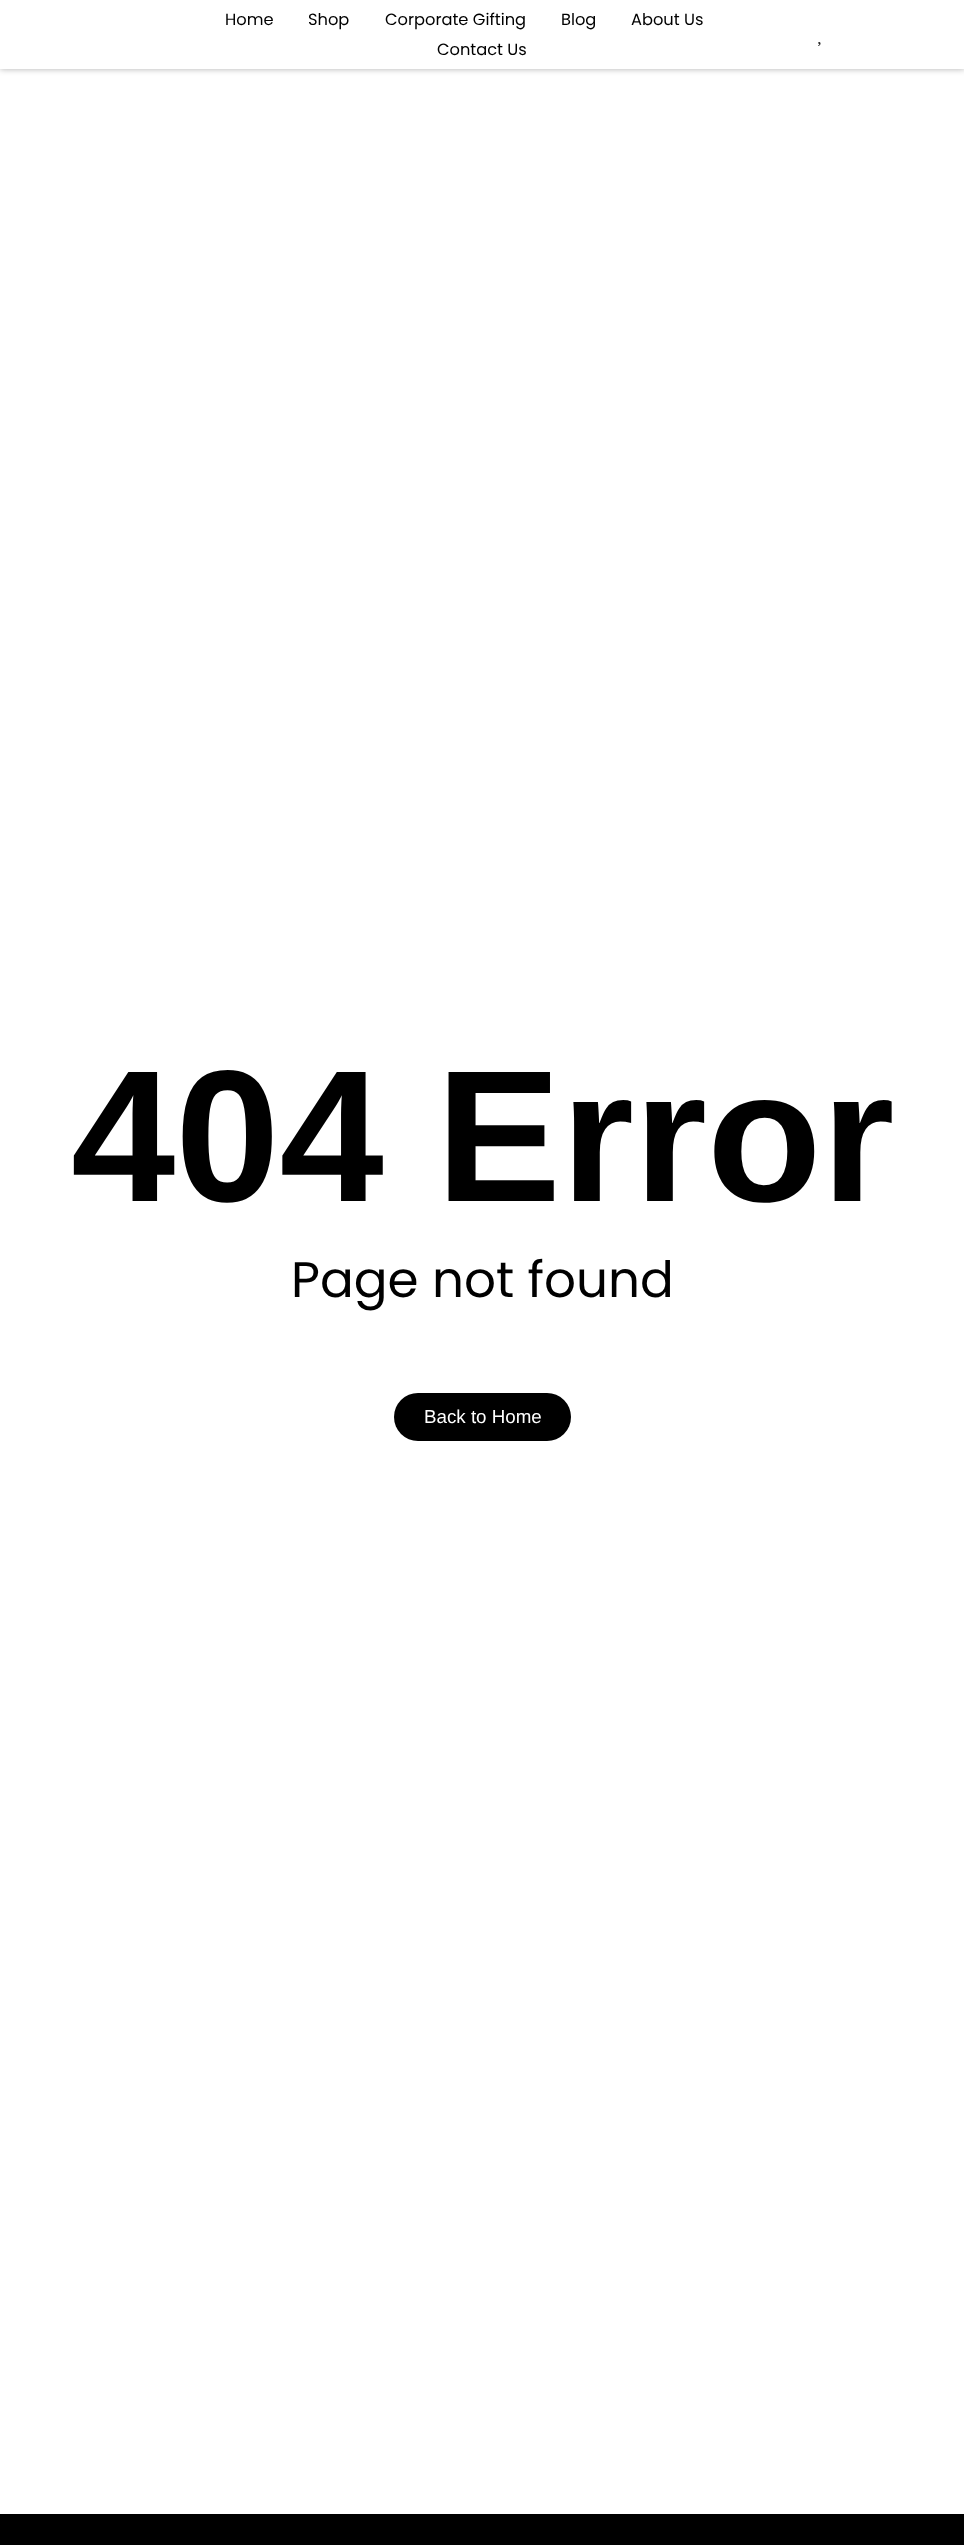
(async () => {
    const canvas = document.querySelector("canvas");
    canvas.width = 964;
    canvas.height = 2545;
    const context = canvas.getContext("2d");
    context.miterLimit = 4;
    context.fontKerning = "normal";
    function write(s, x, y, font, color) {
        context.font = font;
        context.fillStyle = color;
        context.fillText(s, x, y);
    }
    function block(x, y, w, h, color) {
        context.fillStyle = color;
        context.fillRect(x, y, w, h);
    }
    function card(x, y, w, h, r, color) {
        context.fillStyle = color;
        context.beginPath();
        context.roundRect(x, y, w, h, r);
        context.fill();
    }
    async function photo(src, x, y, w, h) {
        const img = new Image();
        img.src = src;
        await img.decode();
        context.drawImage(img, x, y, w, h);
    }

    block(0, 0, 964, 2545, "rgb(255, 255, 255)");
    context.save();
    context.beginPath();
    context.moveTo(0, 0);
    context.lineTo(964, 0);
    context.lineTo(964, 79);
    context.lineTo(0, 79);
    context.closePath();
    context.moveTo(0, 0);
    context.lineTo(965, 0);
    context.lineTo(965, 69);
    context.lineTo(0, 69);
    context.closePath();
    context.clip("evenodd");
    context.fillStyle = "rgba(0, 0, 0, 0.31)";
    context.filter = "blur(3px)";
    context.beginPath();
    context.rect(0, 0, 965, 69);
    context.fill();
    context.filter = "none";
    context.restore();
    block(0, 68, 964, 1, "rgba(255, 255, 255, 0.73)");
    write("Home", 225, 25, "16.25px Poppins", "rgb(0, 0, 0)");
    write("Shop", 308, 25, "16.25px Poppins", "rgb(0, 0, 0)");
    write("Corporate Gifting", 385, 25, "16.25px Poppins", "rgb(0, 0, 0)");
    write("Blog", 561, 25, "16.25px Poppins", "rgb(0, 0, 0)");
    write("About Us", 631, 25, "16.25px Poppins", "rgb(0, 0, 0)");
    write("Contact Us", 437, 55, "16.25px Poppins", "rgb(0, 0, 0)");
    await photo("media/1.png", 818, 42, 3, 4);
    write("404 Error", 71, 1201, "bold 187.5px Liberation Sans", "rgb(0, 0, 0)");
    write("Page not found", 291, 1297, "50px Poppins", "rgb(0, 0, 0)");
    card(394, 1393, 177, 48, 24, "rgb(0, 0, 0)");
    write("Back to Home", 424, 1423, "18.75px Liberation Sans", "rgb(255, 255, 255)");
    block(0, 2514, 964, 31, "rgb(0, 0, 0)");
})();
